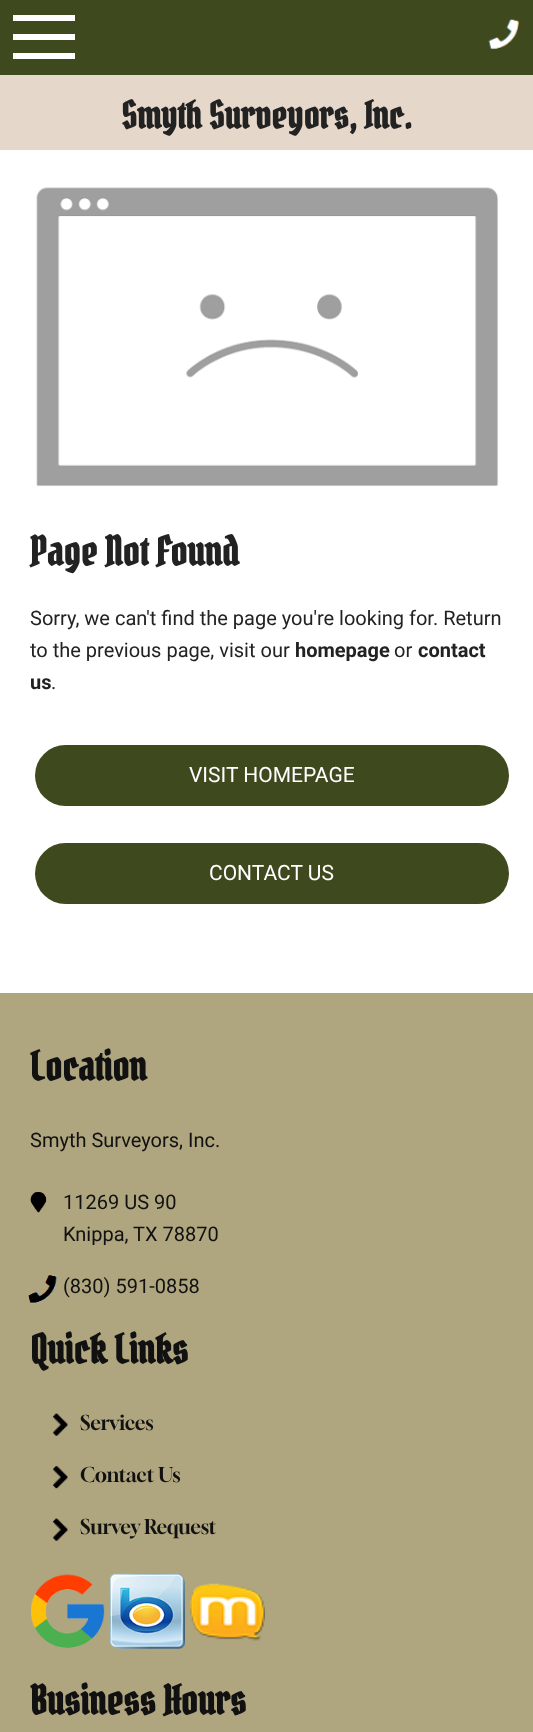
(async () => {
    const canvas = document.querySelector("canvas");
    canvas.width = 533;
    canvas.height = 1732;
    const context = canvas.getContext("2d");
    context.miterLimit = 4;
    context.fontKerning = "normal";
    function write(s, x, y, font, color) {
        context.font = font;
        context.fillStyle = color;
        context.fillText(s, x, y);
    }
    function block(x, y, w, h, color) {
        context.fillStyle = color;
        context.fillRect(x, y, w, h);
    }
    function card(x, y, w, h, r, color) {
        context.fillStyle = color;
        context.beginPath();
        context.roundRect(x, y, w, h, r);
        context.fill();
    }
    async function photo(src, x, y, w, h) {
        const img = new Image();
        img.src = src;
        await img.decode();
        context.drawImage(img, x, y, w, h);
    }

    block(0, 0, 533, 1732, "rgb(255, 255, 255)");
    block(0, 75, 533, 75, "rgb(229, 215, 202)");
    block(0, 0, 533, 75, "rgb(62, 74, 30)");
    block(13, 15, 62, 6, "rgb(255, 255, 255)");
    block(13, 34, 62, 6, "rgb(255, 255, 255)");
    block(13, 53, 62, 6, "rgb(255, 255, 255)");
    await photo("media/1.png", 488, 18, 31, 32);
    write("Smyth Surveyors, Inc.", 121, 129, "bold 37.5px Pirata One", "rgb(34, 34, 34)");
    await photo("media/2.png", 36, 187, 463, 299);
    write("Page Not Found", 30, 566, "bold 40px Pirata One", "rgb(34, 34, 34)");
    write("Sorry, we can't find the page you're looking for. Return", 30, 625, "20px Roboto", "rgb(34, 34, 34)");
    write("to the previous page, visit our", 30, 657, "20px Roboto", "rgb(34, 34, 34)");
    write("homepage", 295, 657, "bold 20px Roboto", "rgb(34, 34, 34)");
    write("or", 394, 657, "20px Roboto", "rgb(34, 34, 34)");
    write("contact", 418, 657, "bold 20px Roboto", "rgb(34, 34, 34)");
    write("us", 30, 689, "bold 20px Roboto", "rgb(34, 34, 34)");
    write(".", 51, 689, "20px Roboto", "rgb(34, 34, 34)");
    card(35, 745, 474, 61, 30.5, "rgb(62, 74, 30)");
    write("VISIT HOMEPAGE", 189, 782, "21px Roboto", "rgb(255, 255, 255)");
    card(35, 843, 474, 61, 30.5, "rgb(62, 74, 30)");
    write("CONTACT US", 209, 880, "21px Roboto", "rgb(255, 255, 255)");
    block(0, 993, 533, 739, "rgb(175, 165, 126)");
    write("Location", 30, 1081, "bold 40px Pirata One", "rgb(17, 17, 17)");
    write("Smyth Surveyors, Inc.", 30, 1147, "20px Roboto", "rgb(17, 17, 17)");
    await photo("media/3.png", 30, 1192, 17, 21);
    write("11269 US 90", 63, 1209, "20px Roboto", "rgb(17, 17, 17)");
    write("Knippa, TX 78870", 63, 1241, "20px Roboto", "rgb(17, 17, 17)");
    await photo("media/4.png", 28, 1274, 29, 30);
    write("(830) 591-0858", 63, 1293, "20px Roboto", "rgb(17, 17, 17)");
    write("Quick Links", 30, 1364, "bold 40px Pirata One", "rgb(17, 17, 17)");
    await photo("media/5.png", 53, 1413, 15, 23);
    write("Services", 80, 1430, "20px Gloock", "rgb(17, 17, 17)");
    await photo("media/6.png", 53, 1466, 15, 23);
    write("Contact Us", 80, 1482, "20px Gloock", "rgb(17, 17, 17)");
    await photo("media/5.png", 53, 1518, 15, 23);
    write("Survey Request", 80, 1534, "20px Gloock", "rgb(17, 17, 17)");
    await photo("media/7.png", 30, 1574, 75, 74);
    await photo("media/8.png", 110, 1573, 75, 76);
    await photo("media/9.png", 190, 1583, 75, 58);
    write("Business Hours", 30, 1715, "bold 40px Pirata One", "rgb(17, 17, 17)");
})();
